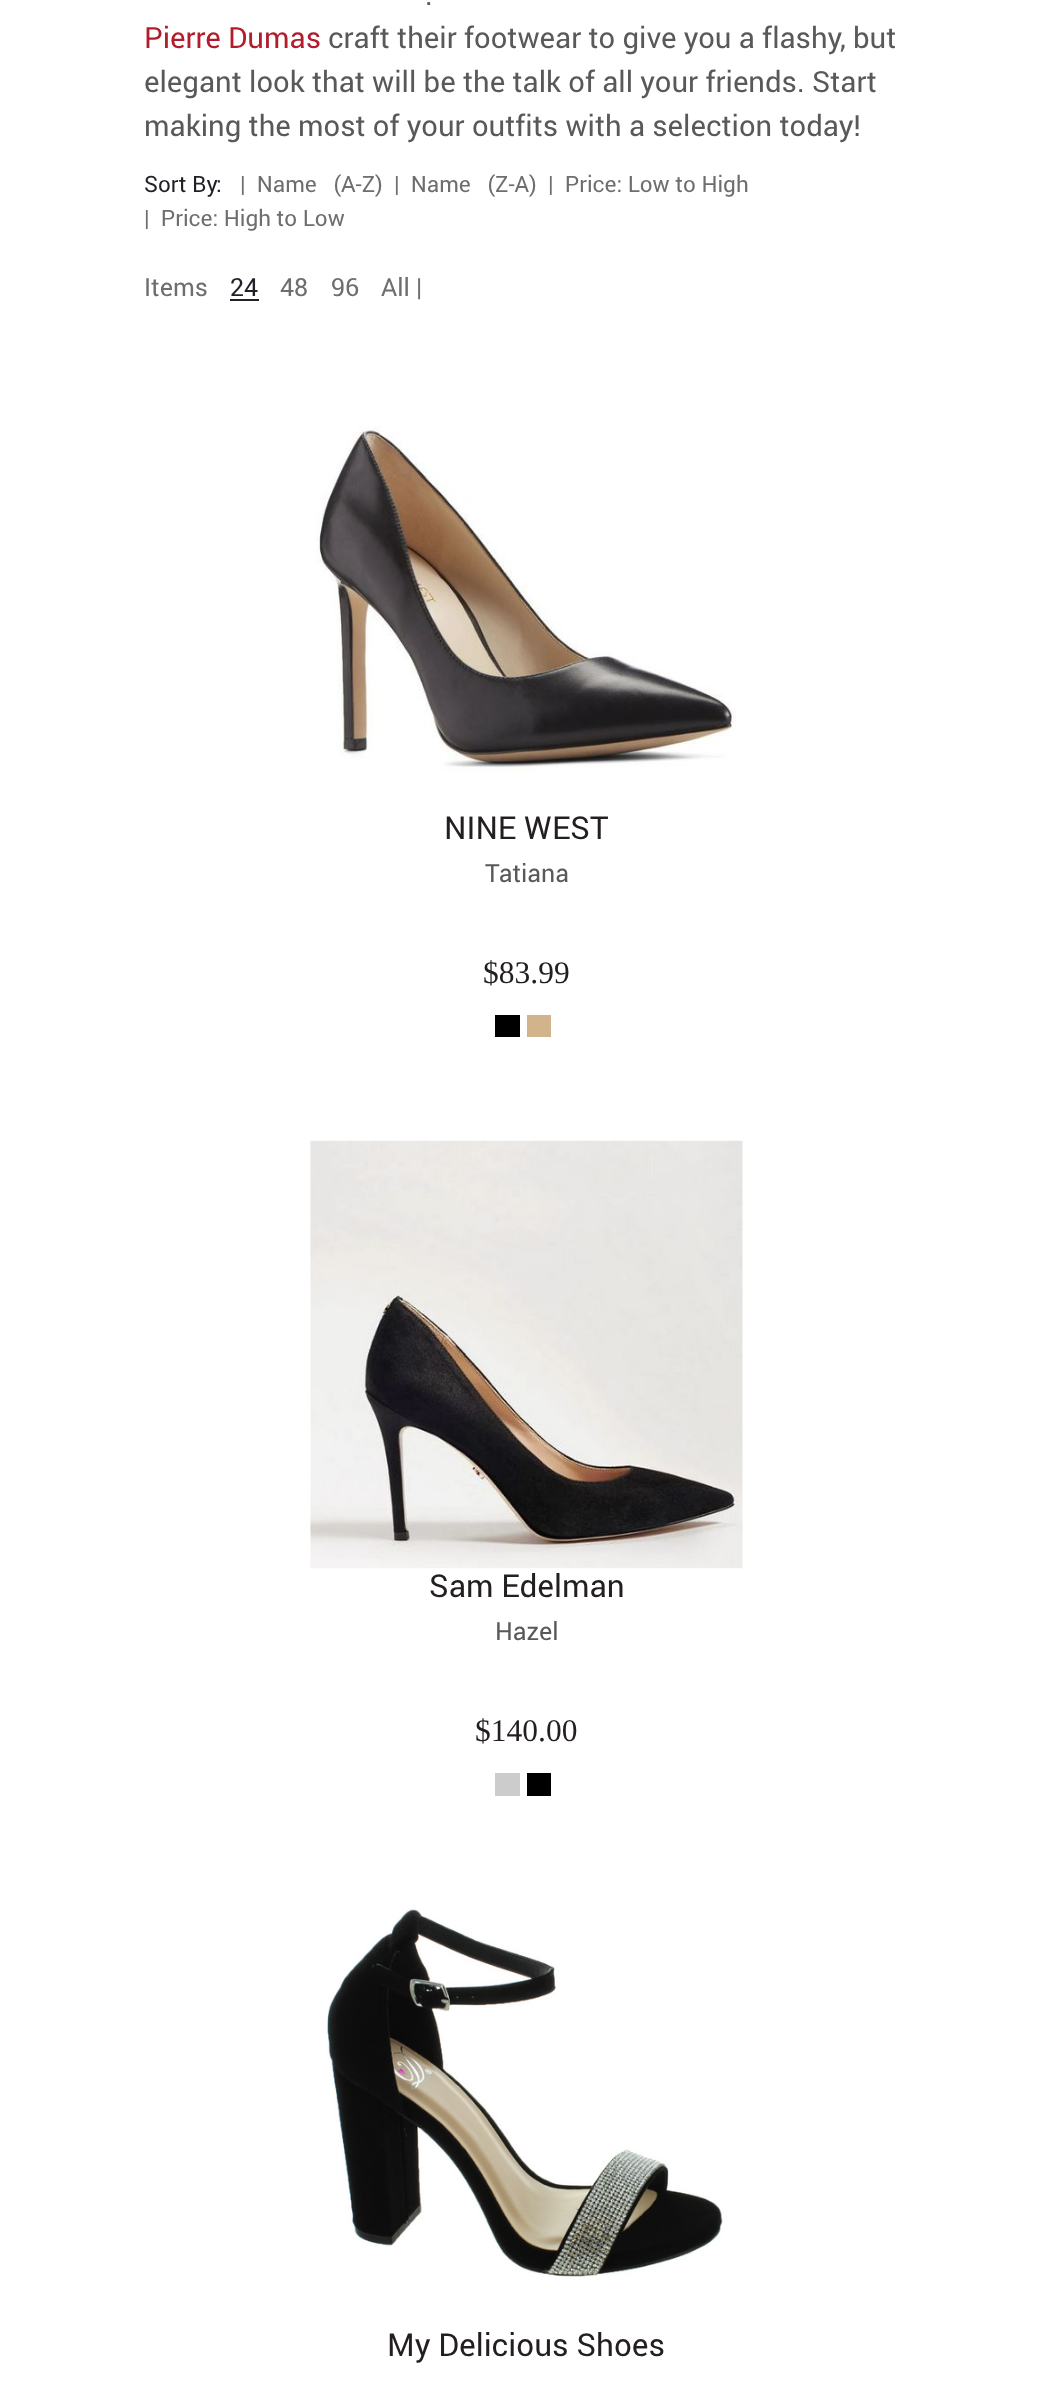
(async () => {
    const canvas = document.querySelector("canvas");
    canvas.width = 1052;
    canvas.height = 2391;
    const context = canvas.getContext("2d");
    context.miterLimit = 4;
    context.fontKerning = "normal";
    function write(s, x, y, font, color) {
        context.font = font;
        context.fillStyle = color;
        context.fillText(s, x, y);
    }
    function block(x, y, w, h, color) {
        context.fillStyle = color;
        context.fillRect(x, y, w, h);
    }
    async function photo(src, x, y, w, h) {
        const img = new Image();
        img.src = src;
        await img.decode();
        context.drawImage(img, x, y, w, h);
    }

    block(0, 0, 1052, 2391, "rgb(255, 255, 255)");
    write(".", 425, 5, "29.25px Roboto", "rgb(88, 89, 91)");
    write("Pierre Dumas", 144, 48, "29.25px Roboto", "rgb(178, 28, 44)");
    write("craft their footwear to give you a flashy, but", 328, 48, "29.25px Roboto", "rgb(88, 89, 91)");
    write("elegant look that will be the talk of all your friends. Start", 144, 92, "29.25px Roboto", "rgb(88, 89, 91)");
    write("making the most of your outfits with a selection today!", 144, 136, "29.25px Roboto", "rgb(88, 89, 91)");
    write("Sort By:", 144, 192, "22.5px Roboto", "rgb(35, 31, 39)");
    write("|  Name   (A-Z)", 240, 192, "22.5px Roboto", "rgb(109, 110, 112)");
    write("|  Name   (Z-A)", 394, 192, "22.5px Roboto", "rgb(109, 110, 112)");
    write("|  Price: Low to High", 548, 192, "22.5px Roboto", "rgb(109, 110, 112)");
    write("|  Price: High to Low", 144, 226, "22.5px Roboto", "rgb(109, 110, 112)");
    write("Items", 144, 296, "25px Roboto", "rgb(109, 110, 112)");
    write("24", 230, 296, "25px Roboto", "rgb(35, 31, 39)");
    block(230, 299, 29, 2, "rgb(35, 31, 39)");
    write("48", 280, 296, "25px Roboto", "rgb(109, 110, 112)");
    write("96", 331, 296, "25px Roboto", "rgb(109, 110, 112)");
    write("All |", 381, 296, "25px Roboto", "rgb(109, 110, 112)");
    await photo("media/1.png", 316, 426, 420, 347);
    write("NINE WEST", 444, 839, "31.5px Roboto", "rgb(35, 31, 32)");
    write("Tatiana", 485, 882, "25px Roboto", "rgb(88, 89, 91)");
    write("$83.99", 483, 983, "31.5px Liberation Serif", "rgb(35, 31, 32)");
    block(495, 1015, 25, 22, "rgb(0, 0, 0)");
    block(527, 1015, 24, 22, "rgb(210, 180, 140)");
    await photo("media/2.png", 310, 1140, 433, 429);
    write("Sam Edelman", 429, 1597, "31.5px Roboto", "rgb(35, 31, 32)");
    write("Hazel", 495, 1640, "25px Roboto", "rgb(88, 89, 91)");
    write("$140.00", 475, 1741, "31.5px Liberation Serif", "rgb(35, 31, 32)");
    block(495, 1773, 25, 23, "rgb(204, 204, 204)");
    block(527, 1773, 24, 23, "rgb(0, 0, 0)");
    await photo("media/3.png", 327, 1908, 396, 369);
    write("My Delicious Shoes", 387, 2356, "31.5px Roboto", "rgb(35, 31, 32)");
})();
